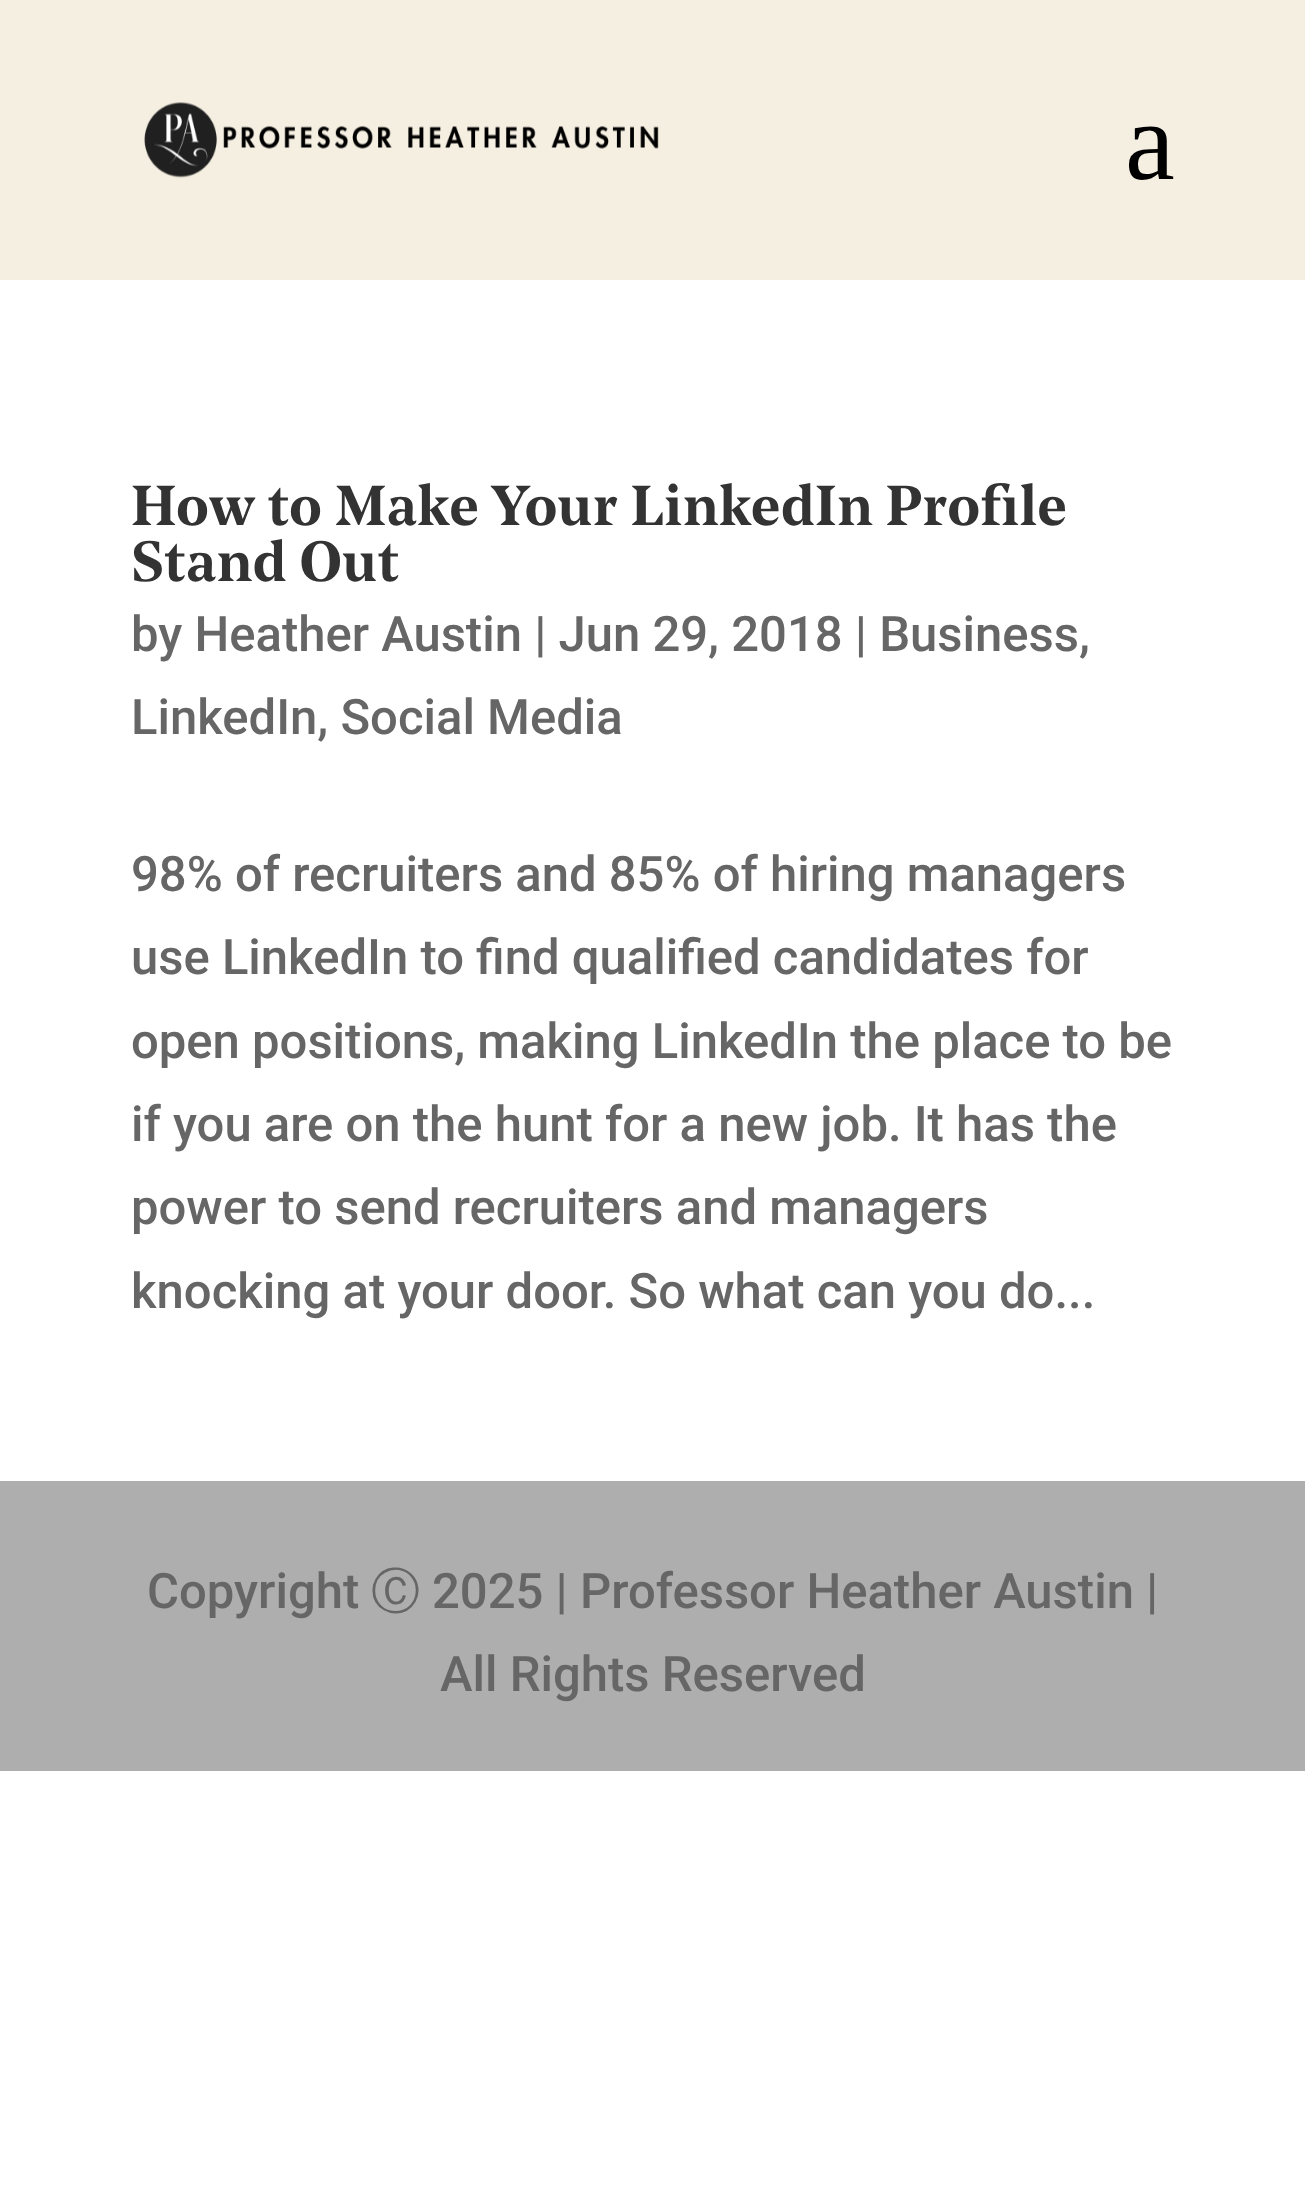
(async () => {
    const canvas = document.querySelector("canvas");
    canvas.width = 1305;
    canvas.height = 2197;
    const context = canvas.getContext("2d");
    context.miterLimit = 4;
    context.fontKerning = "normal";
    function write(s, x, y, font, color) {
        context.font = font;
        context.fillStyle = color;
        context.fillText(s, x, y);
    }
    function block(x, y, w, h, color) {
        context.fillStyle = color;
        context.fillRect(x, y, w, h);
    }
    async function photo(src, x, y, w, h) {
        const img = new Image();
        img.src = src;
        await img.decode();
        context.drawImage(img, x, y, w, h);
    }

    block(0, 0, 1305, 2197, "rgb(255, 255, 255)");
    block(0, 0, 1305, 280, "rgb(245, 239, 226)");
    await photo("media/1.png", 144, 102, 515, 76);
    write("a", 1125, 179, "112px Liberation Serif", "rgb(0, 0, 0)");
    write("How to Make Your LinkedIn Profile", 131, 525, "600 56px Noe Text", "rgb(51, 51, 51)");
    write("Stand Out", 131, 581, "600 56px Noe Text", "rgb(51, 51, 51)");
    write("by Heather Austin | Jun 29, 2018 | Business,", 131, 651, "500 49px Roboto", "rgb(102, 102, 102)");
    write("LinkedIn, Social Media", 131, 734, "500 49px Roboto", "rgb(102, 102, 102)");
    write("98% of recruiters and 85% of hiring managers", 131, 891, "500 49px Roboto", "rgb(102, 102, 102)");
    write("use LinkedIn to find qualified candidates for", 131, 974, "500 49px Roboto", "rgb(102, 102, 102)");
    write("open positions, making LinkedIn the place to be", 131, 1058, "500 49px Roboto", "rgb(102, 102, 102)");
    write("if you are on the hunt for a new job. It has the", 131, 1141, "500 49px Roboto", "rgb(102, 102, 102)");
    write("power to send recruiters and managers", 131, 1224, "500 49px Roboto", "rgb(102, 102, 102)");
    write("knocking at your door. So what can you do...", 131, 1308, "500 49px Roboto", "rgb(102, 102, 102)");
    block(0, 1481, 1305, 290, "rgb(174, 174, 174)");
    write("Copyright", 147, 1608, "500 49px Roboto", "rgb(102, 102, 102)");
    write("Ⓒ", 371, 1608, "500 49px WenQuanYi Zen Hei", "rgb(102, 102, 102)");
    write("2025 | Professor Heather Austin |", 432, 1608, "500 49px Roboto", "rgb(102, 102, 102)");
    write("All Rights Reserved", 440, 1691, "500 49px Roboto", "rgb(102, 102, 102)");
})();
